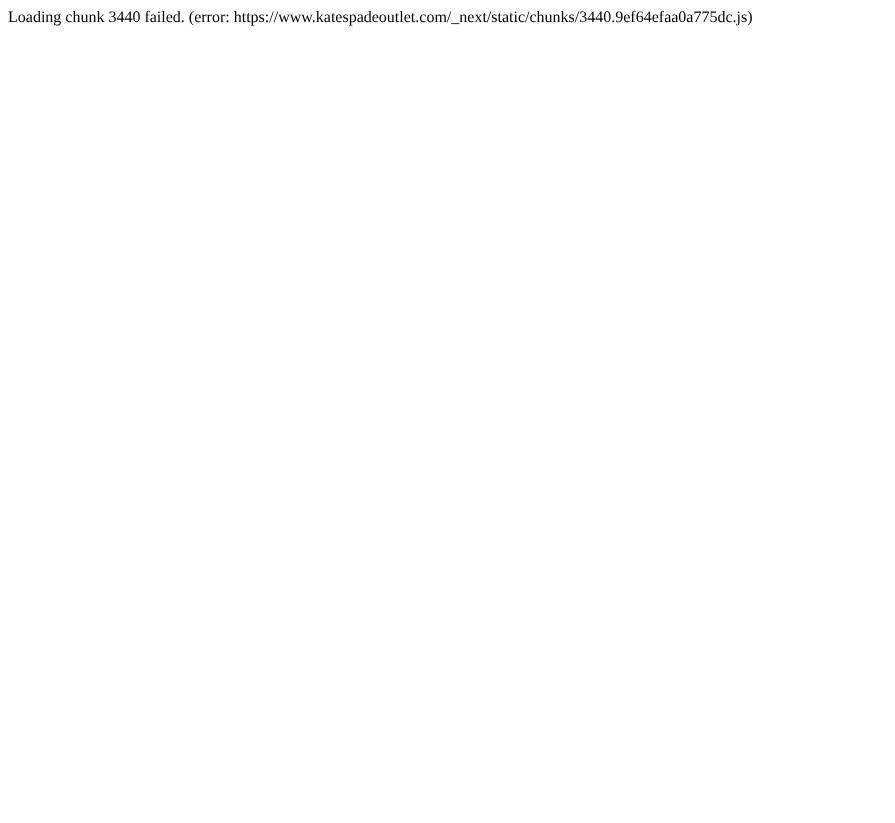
(async () => {
    const canvas = document.querySelector("canvas");
    canvas.width = 895;
    canvas.height = 823;
    const context = canvas.getContext("2d");
    context.miterLimit = 4;
    context.fontKerning = "normal";
    function write(s, x, y, font, color) {
        context.font = font;
        context.fillStyle = color;
        context.fillText(s, x, y);
    }
    function block(x, y, w, h, color) {
        context.fillStyle = color;
        context.fillRect(x, y, w, h);
    }

    block(0, 0, 895, 823, "rgb(255, 255, 255)");
    write("Loading chunk 3440 failed. (error: https://www.katespadeoutlet.com/_next/static/chunks/3440.9ef64efaa0a775dc.js)", 8, 22, "16px Liberation Serif", "rgb(0, 0, 0)");
})();
